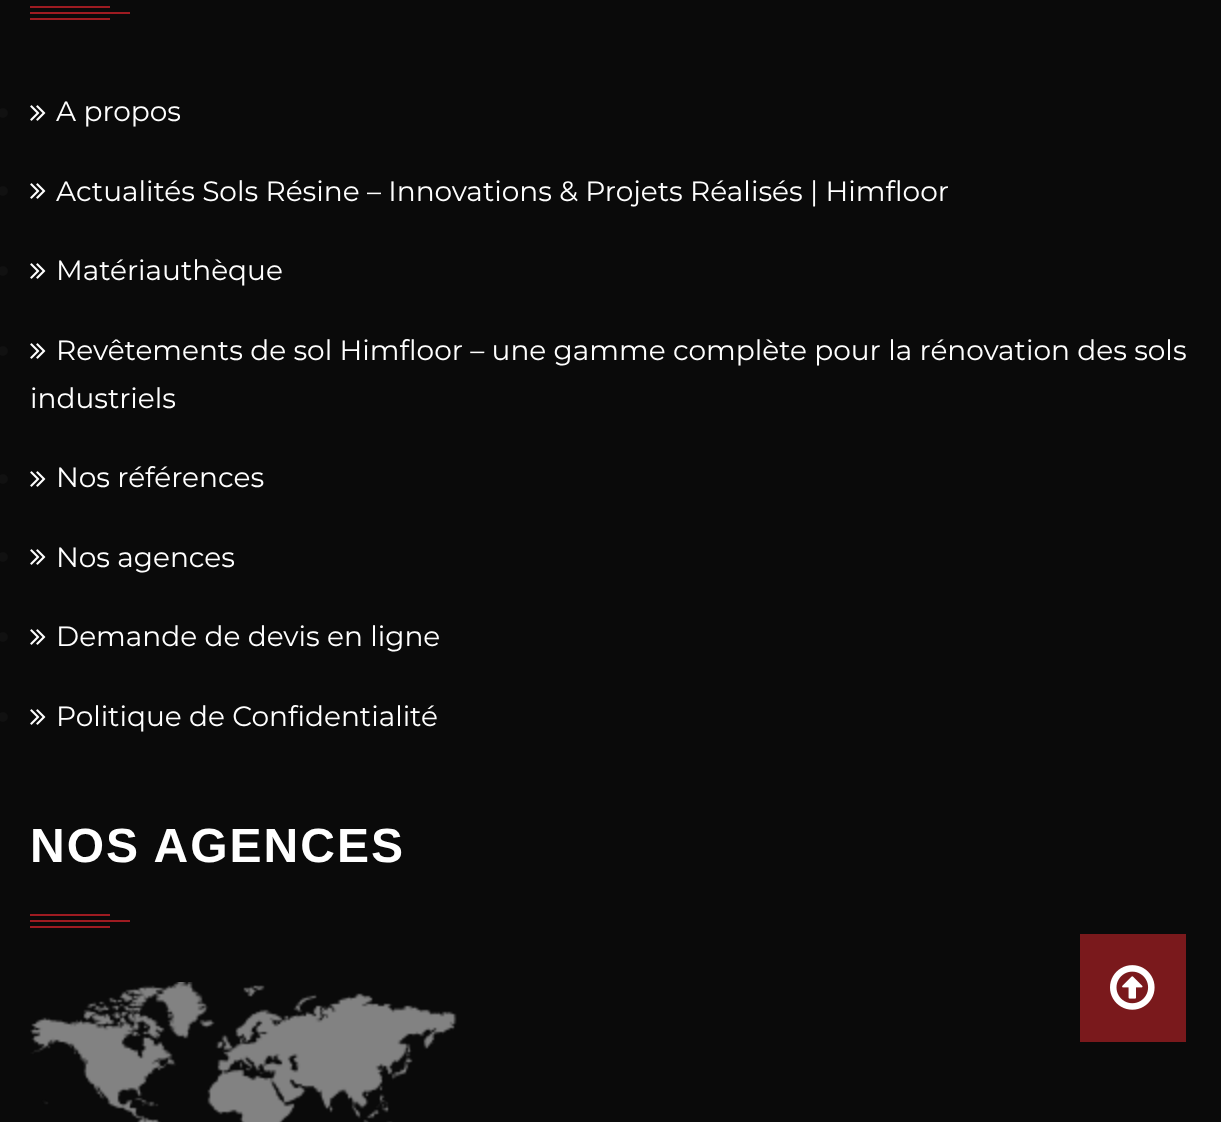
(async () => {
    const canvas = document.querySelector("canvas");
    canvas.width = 1221;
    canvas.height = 1122;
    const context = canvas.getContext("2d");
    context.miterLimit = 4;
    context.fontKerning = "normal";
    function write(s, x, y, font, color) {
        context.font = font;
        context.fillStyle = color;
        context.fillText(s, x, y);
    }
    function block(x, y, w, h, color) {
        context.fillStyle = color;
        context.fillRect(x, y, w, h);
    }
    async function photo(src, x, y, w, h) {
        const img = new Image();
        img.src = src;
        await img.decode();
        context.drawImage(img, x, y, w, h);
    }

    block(0, 0, 1221, 1122, "rgb(10, 10, 10)");
    block(30, 12, 100, 2, "rgb(158, 27, 33)");
    block(30, 6, 80, 2, "rgb(158, 27, 33)");
    block(30, 18, 80, 2, "rgb(158, 27, 33)");
    context.fillStyle = "rgb(17, 17, 17)";
    context.beginPath();
    context.arc(3, 113, 5, 0, Math.PI * 2);
    context.fill();
    await photo("media/1.png", 30, 105, 16, 16);
    write("A propos", 56, 121, "28px Montserrat", "rgb(255, 255, 255)");
    context.fillStyle = "rgb(17, 17, 17)";
    context.beginPath();
    context.arc(3, 191, 5, 0, Math.PI * 2);
    context.fill();
    await photo("media/1.png", 30, 183, 16, 16);
    write("Actualités Sols Résine – Innovations & Projets Réalisés | Himfloor", 56, 201, "28px Montserrat", "rgb(255, 255, 255)");
    context.fillStyle = "rgb(17, 17, 17)";
    context.beginPath();
    context.arc(3, 271, 5, 0, Math.PI * 2);
    context.fill();
    await photo("media/1.png", 30, 263, 16, 16);
    write("Matériauthèque", 56, 280, "28px Montserrat", "rgb(255, 255, 255)");
    context.fillStyle = "rgb(17, 17, 17)";
    context.beginPath();
    context.arc(3, 351, 5, 0, Math.PI * 2);
    context.fill();
    await photo("media/1.png", 30, 343, 16, 16);
    write("Revêtements de sol Himfloor – une gamme complète pour la rénovation des sols", 56, 360, "28px Montserrat", "rgb(255, 255, 255)");
    write("industriels", 30, 408, "28px Montserrat", "rgb(255, 255, 255)");
    context.fillStyle = "rgb(17, 17, 17)";
    context.beginPath();
    context.arc(3, 479, 5, 0, Math.PI * 2);
    context.fill();
    await photo("media/1.png", 30, 471, 16, 16);
    write("Nos références", 56, 487, "28px Montserrat", "rgb(255, 255, 255)");
    context.fillStyle = "rgb(17, 17, 17)";
    context.beginPath();
    context.arc(3, 557, 5, 0, Math.PI * 2);
    context.fill();
    await photo("media/1.png", 30, 549, 16, 16);
    write("Nos agences", 56, 567, "28px Montserrat", "rgb(255, 255, 255)");
    context.fillStyle = "rgb(17, 17, 17)";
    context.beginPath();
    context.arc(3, 637, 5, 0, Math.PI * 2);
    context.fill();
    await photo("media/1.png", 30, 629, 16, 16);
    write("Demande de devis en ligne", 56, 646, "28px Montserrat", "rgb(255, 255, 255)");
    context.fillStyle = "rgb(17, 17, 17)";
    context.beginPath();
    context.arc(3, 717, 5, 0, Math.PI * 2);
    context.fill();
    await photo("media/1.png", 30, 709, 16, 16);
    write("Politique de Confidentialité", 56, 726, "28px Montserrat", "rgb(255, 255, 255)");
    context.letterSpacing = "2px";
    write("NOS AGENCES", 30, 862, "bold 48px Liberation Sans", "rgb(255, 255, 255)");
    block(30, 920, 100, 2, "rgb(158, 27, 33)");
    block(30, 914, 80, 2, "rgb(158, 27, 33)");
    block(30, 926, 80, 2, "rgb(158, 27, 33)");
    await photo("media/2.png", 30, 982, 427, 140);
    block(1080, 934, 106, 108, "rgb(122, 25, 28)");
    await photo("media/3.png", 1110, 965, 45, 45);
})();
